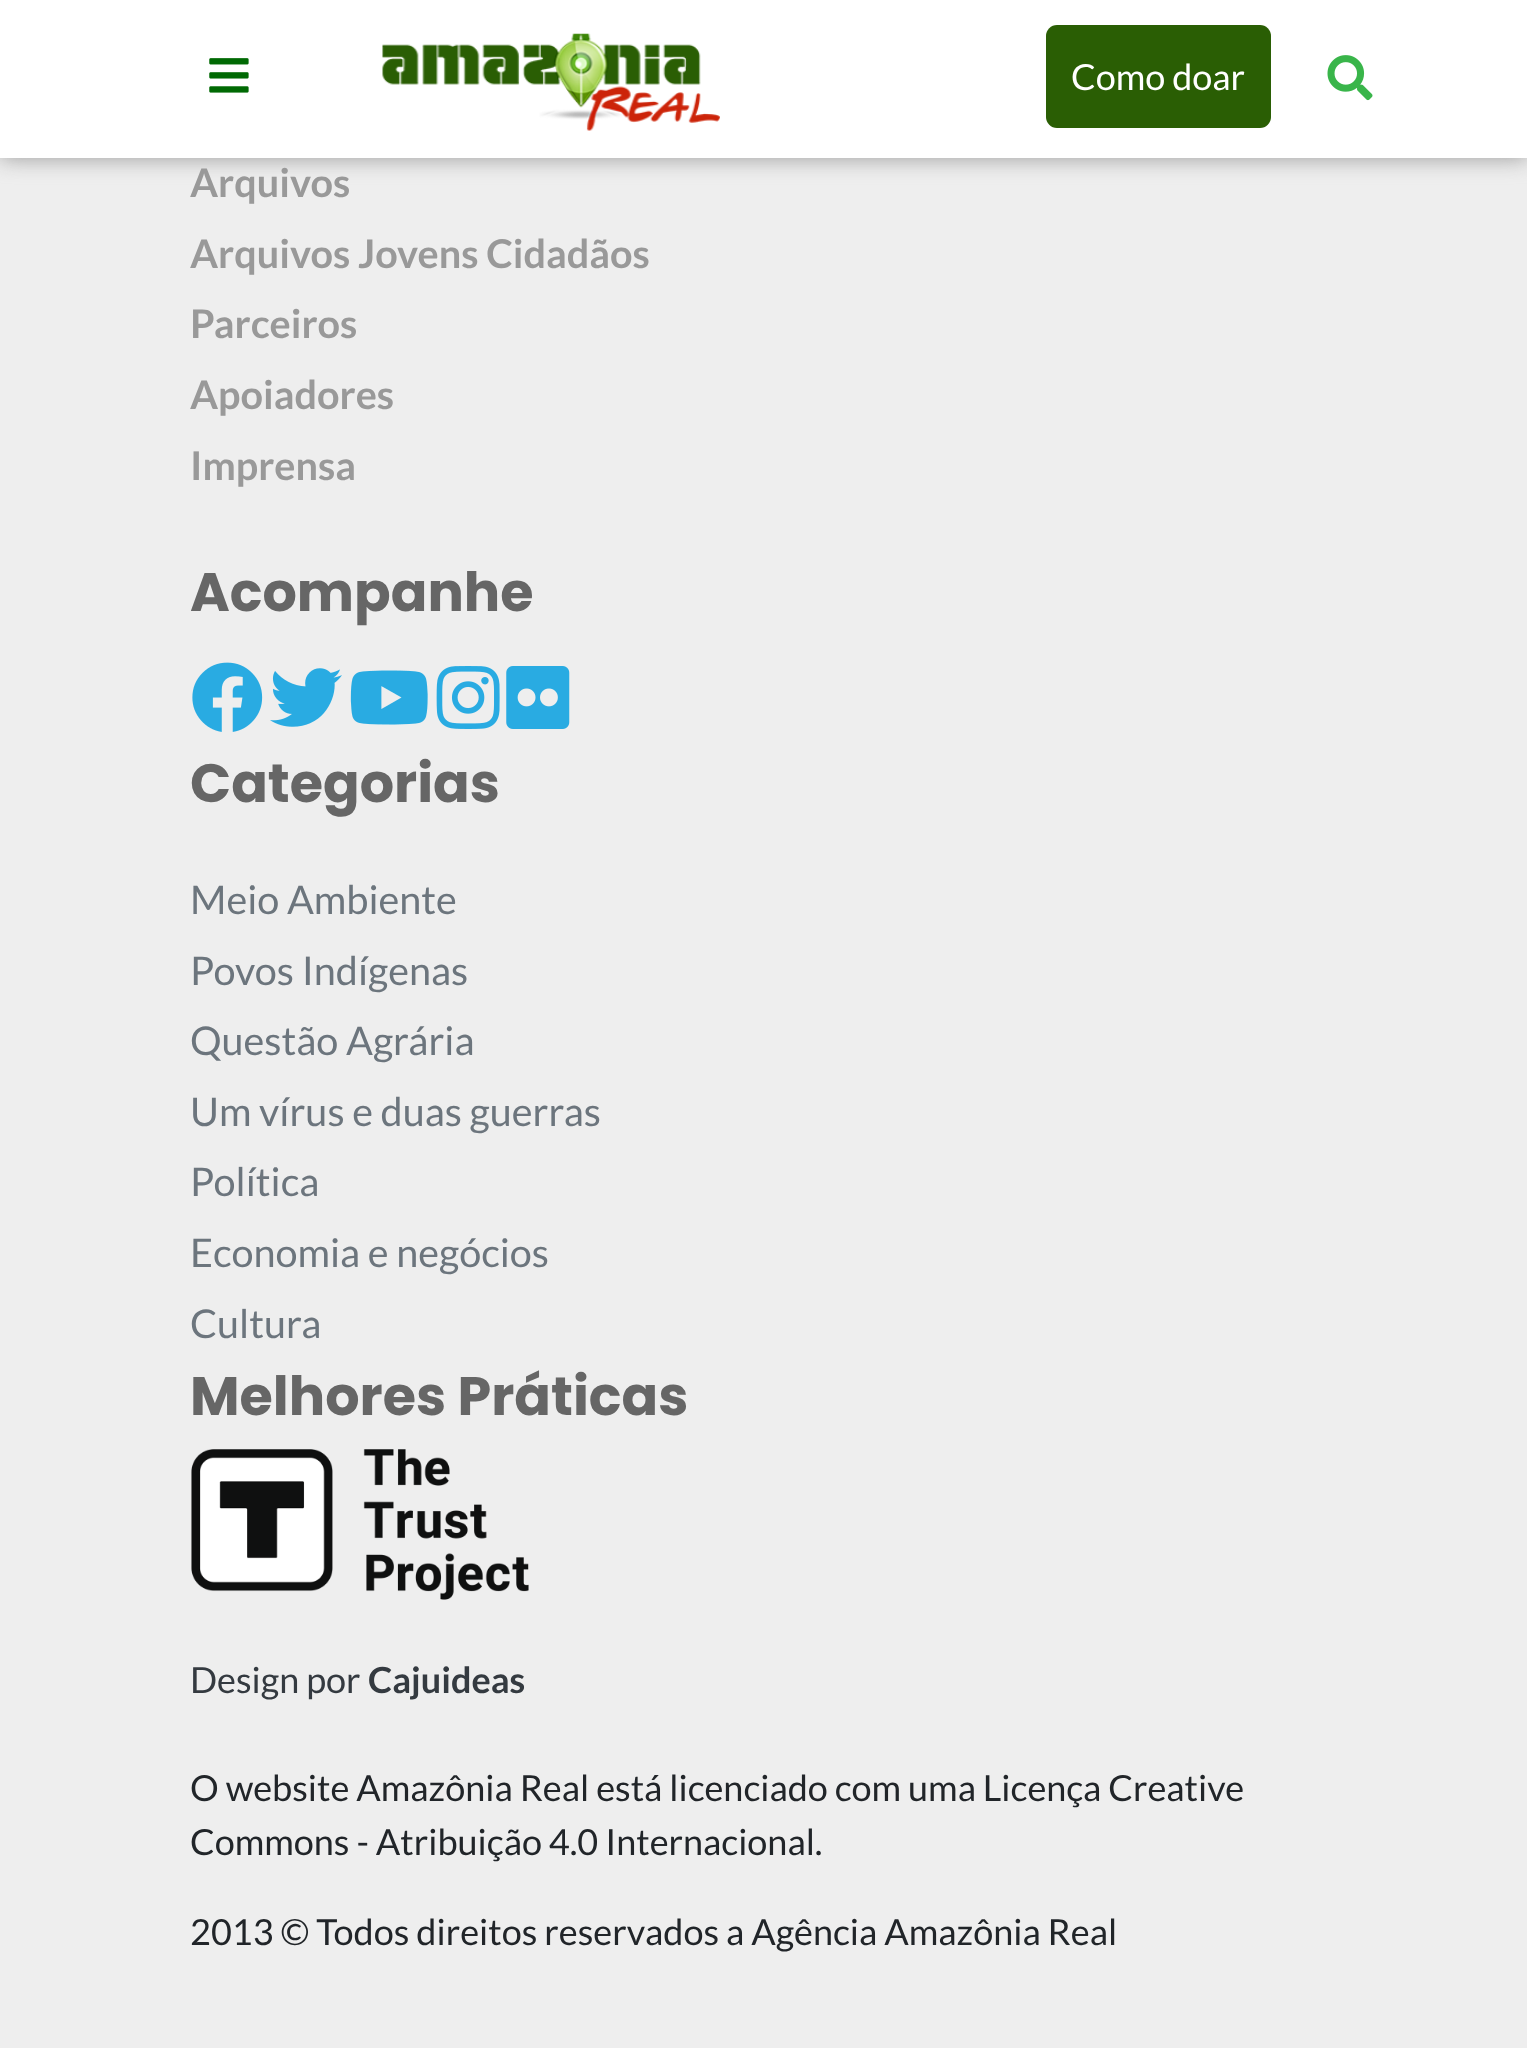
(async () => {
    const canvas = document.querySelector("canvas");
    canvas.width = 1527;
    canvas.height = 2048;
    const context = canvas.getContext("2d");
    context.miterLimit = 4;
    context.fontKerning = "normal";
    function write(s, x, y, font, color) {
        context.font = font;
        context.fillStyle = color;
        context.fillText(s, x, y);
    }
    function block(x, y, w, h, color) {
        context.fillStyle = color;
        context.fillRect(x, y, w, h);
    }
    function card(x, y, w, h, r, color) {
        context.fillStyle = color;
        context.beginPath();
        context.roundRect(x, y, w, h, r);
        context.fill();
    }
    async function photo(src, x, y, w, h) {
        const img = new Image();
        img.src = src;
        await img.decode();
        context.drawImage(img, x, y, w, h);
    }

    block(0, 0, 1527, 2048, "rgb(238, 238, 238)");
    context.fillStyle = "rgb(153, 153, 153)";
    context.filter = "blur(11px)";
    context.beginPath();
    context.rect(0, 0, 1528, 158);
    context.fill();
    context.filter = "none";
    block(0, 0, 1527, 158, "rgb(255, 255, 255)");
    await photo("media/1.png", 209, 58, 40, 35);
    await photo("media/2.png", 382, 33, 338, 98);
    card(1046, 25, 225, 103, 11, "rgb(42, 94, 4)");
    write("Como doar", 1071, 90, "36px Lato", "rgb(255, 255, 255)");
    await photo("media/3.png", 1327, 55, 46, 46);
    write("Arquivos", 190, 197, "bold 39.6px Lato", "rgb(153, 153, 153)");
    write("Arquivos Jovens Cidadãos", 190, 268, "bold 39.6px Lato", "rgb(153, 153, 153)");
    write("Parceiros", 190, 338, "bold 39.6px Lato", "rgb(153, 153, 153)");
    write("Apoiadores", 190, 409, "bold 39.6px Lato", "rgb(153, 153, 153)");
    write("Imprensa", 190, 480, "bold 39.6px Lato", "rgb(153, 153, 153)");
    write("Acompanhe", 190, 611, "bold 54px Poppins", "rgb(102, 102, 102)");
    await photo("media/4.png", 192, 662, 71, 70);
    await photo("media/5.png", 270, 668, 72, 59);
    await photo("media/6.png", 350, 670, 78, 55);
    await photo("media/7.png", 436, 666, 64, 63);
    await photo("media/8.png", 506, 666, 64, 63);
    write("Categorias", 190, 802, "bold 54px Poppins", "rgb(102, 102, 102)");
    write("Meio Ambiente", 190, 914, "39.6px Lato", "rgb(108, 117, 125)");
    write("Povos Indígenas", 190, 985, "39.6px Lato", "rgb(108, 117, 125)");
    write("Questão Agrária", 190, 1055, "39.6px Lato", "rgb(108, 117, 125)");
    write("Um vírus e duas guerras", 190, 1126, "39.6px Lato", "rgb(108, 117, 125)");
    write("Política", 190, 1196, "39.6px Lato", "rgb(108, 117, 125)");
    write("Economia e negócios", 190, 1267, "39.6px Lato", "rgb(108, 117, 125)");
    write("Cultura", 190, 1338, "39.6px Lato", "rgb(108, 117, 125)");
    write("Melhores Práticas", 190, 1415, "bold 54px Poppins", "rgb(102, 102, 102)");
    await photo("media/9.png", 191, 1449, 338, 151);
    write("Design por", 190, 1693, "36px Lato", "rgb(52, 58, 64)");
    write("Cajuideas", 368, 1693, "bold 36px Lato", "rgb(52, 58, 64)");
    write("O website Amazônia Real está licenciado com uma Licença Creative", 190, 1801, "36px Lato", "rgb(33, 37, 41)");
    write("Commons - Atribuição 4.0 Internacional.", 190, 1855, "36px Lato", "rgb(33, 37, 41)");
    write("2013 © Todos direitos reservados a Agência Amazônia Real", 190, 1945, "36px Lato", "rgb(33, 37, 41)");
})();
